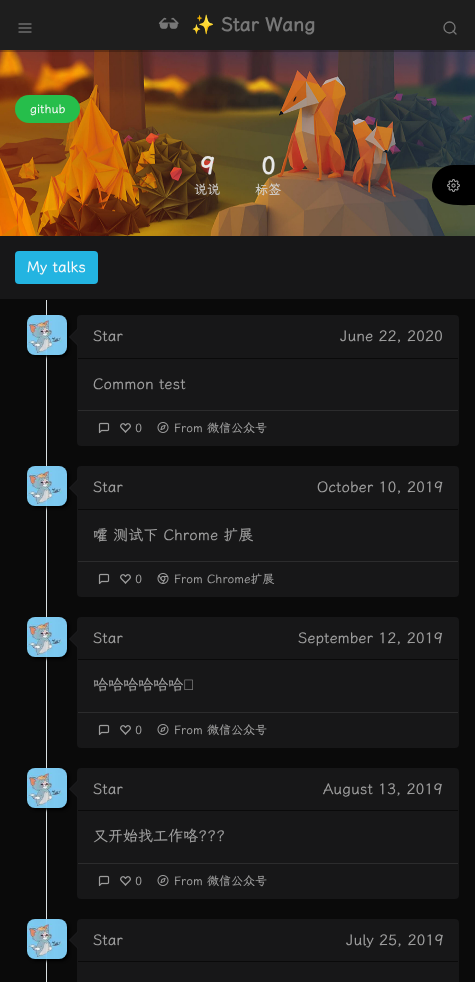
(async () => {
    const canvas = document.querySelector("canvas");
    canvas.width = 475;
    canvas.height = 982;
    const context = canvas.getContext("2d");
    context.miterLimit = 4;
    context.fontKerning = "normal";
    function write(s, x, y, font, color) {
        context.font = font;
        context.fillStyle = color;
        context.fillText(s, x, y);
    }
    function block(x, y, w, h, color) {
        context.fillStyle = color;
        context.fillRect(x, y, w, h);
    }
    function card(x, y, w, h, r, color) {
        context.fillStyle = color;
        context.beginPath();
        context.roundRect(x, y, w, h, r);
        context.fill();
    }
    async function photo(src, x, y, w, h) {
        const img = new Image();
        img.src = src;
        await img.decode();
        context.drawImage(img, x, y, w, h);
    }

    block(0, 0, 475, 982, "rgb(10, 10, 10)");
    await photo("media/3.png", 0, 50, 475, 186);
    context.fillStyle = "rgba(0, 0, 0, 0.25)";
    context.filter = "blur(0.5px)";
    context.beginPath();
    context.rect(-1, 0, 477, 52);
    context.fill();
    context.filter = "none";
    block(0, 0, 475, 50, "rgb(30, 30, 30)");
    await photo("media/1.png", 18, 23, 14, 10);
    await photo("media/2.png", 158, 17, 21, 12);
    write("✨", 191, 31, "bold 19px Noto Color Emoji", "rgb(119, 119, 119)");
    write("Star Wang", 221, 31, "bold 19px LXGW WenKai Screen", "rgb(119, 119, 119)");
    context.beginPath();
    context.arc(449.5, 27.5, 5.5, 0, Math.PI * 2);
    context.strokeStyle = "rgb(119, 119, 119)";
    context.lineWidth = 1.3;
    context.stroke();
    context.beginPath();
    context.moveTo(456, 34);
    context.lineTo(453, 31);
    context.lineCap = "round";
    context.lineJoin = "round";
    context.stroke();
    card(15, 95, 65, 28, 14, "rgb(38, 190, 75)");
    write("github", 30, 113, "12px LXGW WenKai Screen", "rgb(250, 250, 250)");
    write("9", 200, 174, "bold 24px LXGW WenKai Screen", "rgb(231, 231, 231)");
    write("说说", 194, 194, "13px LXGW WenKai Screen", "rgb(210, 210, 210)");
    write("0", 261, 174, "bold 24px LXGW WenKai Screen", "rgb(231, 231, 231)");
    write("标签", 255, 194, "13px LXGW WenKai Screen", "rgb(210, 210, 210)");
    block(0, 236, 475, 63, "rgb(23, 23, 24)");
    card(15, 251, 83, 33, 4, "rgb(35, 180, 225)");
    write("My talks", 27, 272, "15px LXGW WenKai Screen", "rgb(250, 250, 250)");
    block(46, 300, 1, 682, "rgb(218, 225, 227)");
    context.save();
    context.beginPath();
    context.moveTo(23, 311);
    context.lineTo(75, 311);
    context.lineTo(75, 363);
    context.lineTo(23, 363);
    context.closePath();
    context.moveTo(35, 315);
    context.lineTo(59, 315);
    context.bezierCurveTo(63.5, 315, 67, 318.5, 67, 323);
    context.lineTo(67, 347);
    context.bezierCurveTo(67, 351.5, 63.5, 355, 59, 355);
    context.lineTo(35, 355);
    context.bezierCurveTo(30.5, 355, 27, 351.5, 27, 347);
    context.lineTo(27, 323);
    context.bezierCurveTo(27, 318.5, 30.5, 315, 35, 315);
    context.closePath();
    context.clip("evenodd");
    context.fillStyle = "rgb(0, 0, 0)";
    context.filter = "blur(1.5px)";
    context.beginPath();
    context.roundRect(29, 317, 40, 40, 8);
    context.fill();
    context.filter = "none";
    context.restore();
    await photo("media/4.png", 27, 315, 40, 40);
    card(77, 315, 382, 131, 4, "rgb(23, 23, 24)");
    block(78, 358, 380, 1, "rgb(10, 10, 10)");
    context.fillStyle = "rgb(31, 31, 32)";
    context.beginPath();
    context.moveTo(78, 328);
    context.lineTo(78, 346);
    context.lineTo(69, 337);
    context.closePath();
    context.fill();
    context.fillStyle = "rgb(23, 23, 24)";
    context.beginPath();
    context.moveTo(78, 329);
    context.lineTo(78, 345);
    context.lineTo(70, 337);
    context.closePath();
    context.fill();
    write("Star", 93, 341, "15px LXGW WenKai Screen", "rgb(157, 157, 157)");
    write("June 22, 2020", 340, 341, "15px LXGW WenKai Screen", "rgb(157, 157, 157)");
    write("Common test", 93, 389, "15px LXGW WenKai Screen", "rgb(157, 157, 157)");
    block(78, 410, 380, 1, "rgb(44, 44, 45)");
    await photo("media/5.png", 98, 422, 12, 12);
    await photo("media/6.png", 120, 423, 11, 10);
    write("0", 135, 432, "12px LXGW WenKai Screen", "rgb(157, 157, 157)");
    await photo("media/7.png", 157, 422, 12, 11);
    write("From 微信公众号", 174, 432, "12px LXGW WenKai Screen", "rgb(157, 157, 157)");
    context.save();
    context.beginPath();
    context.moveTo(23, 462);
    context.lineTo(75, 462);
    context.lineTo(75, 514);
    context.lineTo(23, 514);
    context.closePath();
    context.moveTo(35, 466);
    context.lineTo(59, 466);
    context.bezierCurveTo(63.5, 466, 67, 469.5, 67, 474);
    context.lineTo(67, 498);
    context.bezierCurveTo(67, 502.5, 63.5, 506, 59, 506);
    context.lineTo(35, 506);
    context.bezierCurveTo(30.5, 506, 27, 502.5, 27, 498);
    context.lineTo(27, 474);
    context.bezierCurveTo(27, 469.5, 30.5, 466, 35, 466);
    context.closePath();
    context.clip("evenodd");
    context.fillStyle = "rgb(0, 0, 0)";
    context.filter = "blur(1.5px)";
    context.beginPath();
    context.roundRect(29, 468, 40, 40, 8);
    context.fill();
    context.filter = "none";
    context.restore();
    await photo("media/8.png", 27, 466, 40, 40);
    card(77, 466, 382, 131, 4, "rgb(23, 23, 24)");
    block(78, 509, 380, 1, "rgb(10, 10, 10)");
    context.fillStyle = "rgb(31, 31, 32)";
    context.beginPath();
    context.moveTo(78, 479);
    context.lineTo(78, 497);
    context.lineTo(69, 488);
    context.closePath();
    context.fill();
    context.fillStyle = "rgb(23, 23, 24)";
    context.beginPath();
    context.moveTo(78, 480);
    context.lineTo(78, 496);
    context.lineTo(70, 488);
    context.closePath();
    context.fill();
    write("Star", 93, 492, "15px LXGW WenKai Screen", "rgb(157, 157, 157)");
    write("October 10, 2019", 317, 492, "15px LXGW WenKai Screen", "rgb(157, 157, 157)");
    write("嚯 测试下 Chrome 扩展", 93, 540, "15px LXGW WenKai Screen", "rgb(157, 157, 157)");
    block(78, 561, 380, 1, "rgb(44, 44, 45)");
    await photo("media/5.png", 98, 573, 12, 12);
    await photo("media/6.png", 120, 574, 11, 10);
    write("0", 135, 583, "12px LXGW WenKai Screen", "rgb(157, 157, 157)");
    await photo("media/9.png", 157, 573, 12, 11);
    write("From Chrome扩展", 174, 583, "12px LXGW WenKai Screen", "rgb(157, 157, 157)");
    context.save();
    context.beginPath();
    context.moveTo(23, 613);
    context.lineTo(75, 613);
    context.lineTo(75, 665);
    context.lineTo(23, 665);
    context.closePath();
    context.moveTo(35, 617);
    context.lineTo(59, 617);
    context.bezierCurveTo(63.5, 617, 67, 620.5, 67, 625);
    context.lineTo(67, 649);
    context.bezierCurveTo(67, 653.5, 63.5, 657, 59, 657);
    context.lineTo(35, 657);
    context.bezierCurveTo(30.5, 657, 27, 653.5, 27, 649);
    context.lineTo(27, 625);
    context.bezierCurveTo(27, 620.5, 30.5, 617, 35, 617);
    context.closePath();
    context.clip("evenodd");
    context.fillStyle = "rgb(0, 0, 0)";
    context.filter = "blur(1.5px)";
    context.beginPath();
    context.roundRect(29, 619, 40, 40, 8);
    context.fill();
    context.filter = "none";
    context.restore();
    await photo("media/10.png", 27, 617, 40, 40);
    card(77, 617, 382, 131, 4, "rgb(23, 23, 24)");
    block(78, 659, 380, 1, "rgb(10, 10, 10)");
    context.fillStyle = "rgb(31, 31, 32)";
    context.beginPath();
    context.moveTo(78, 630);
    context.lineTo(78, 648);
    context.lineTo(69, 639);
    context.closePath();
    context.fill();
    context.fillStyle = "rgb(23, 23, 24)";
    context.beginPath();
    context.moveTo(78, 631);
    context.lineTo(78, 647);
    context.lineTo(70, 639);
    context.closePath();
    context.fill();
    write("Star", 93, 643, "15px LXGW WenKai Screen", "rgb(157, 157, 157)");
    write("September 12, 2019", 298, 643, "15px LXGW WenKai Screen", "rgb(157, 157, 157)");
    write("哈哈哈哈哈哈", 93, 690, "15px LXGW WenKai Screen", "rgb(157, 157, 157)");
    await photo("media/11.png", 184, 679, 9, 11);
    block(78, 712, 380, 1, "rgb(44, 44, 45)");
    await photo("media/5.png", 98, 724, 12, 12);
    await photo("media/6.png", 120, 725, 11, 10);
    write("0", 135, 734, "12px LXGW WenKai Screen", "rgb(157, 157, 157)");
    await photo("media/7.png", 157, 724, 12, 11);
    write("From 微信公众号", 174, 734, "12px LXGW WenKai Screen", "rgb(157, 157, 157)");
    context.save();
    context.beginPath();
    context.moveTo(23, 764);
    context.lineTo(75, 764);
    context.lineTo(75, 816);
    context.lineTo(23, 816);
    context.closePath();
    context.moveTo(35, 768);
    context.lineTo(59, 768);
    context.bezierCurveTo(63.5, 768, 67, 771.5, 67, 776);
    context.lineTo(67, 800);
    context.bezierCurveTo(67, 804.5, 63.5, 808, 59, 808);
    context.lineTo(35, 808);
    context.bezierCurveTo(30.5, 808, 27, 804.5, 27, 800);
    context.lineTo(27, 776);
    context.bezierCurveTo(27, 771.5, 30.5, 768, 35, 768);
    context.closePath();
    context.clip("evenodd");
    context.fillStyle = "rgb(0, 0, 0)";
    context.filter = "blur(1.5px)";
    context.beginPath();
    context.roundRect(29, 770, 40, 40, 8);
    context.fill();
    context.filter = "none";
    context.restore();
    await photo("media/12.png", 27, 768, 40, 40);
    card(77, 768, 382, 131, 4, "rgb(23, 23, 24)");
    block(78, 810, 380, 1, "rgb(10, 10, 10)");
    context.fillStyle = "rgb(31, 31, 32)";
    context.beginPath();
    context.moveTo(78, 780);
    context.lineTo(78, 798);
    context.lineTo(69, 789);
    context.closePath();
    context.fill();
    context.fillStyle = "rgb(23, 23, 24)";
    context.beginPath();
    context.moveTo(78, 781);
    context.lineTo(78, 797);
    context.lineTo(70, 789);
    context.closePath();
    context.fill();
    write("Star", 93, 794, "15px LXGW WenKai Screen", "rgb(157, 157, 157)");
    write("August 13, 2019", 323, 794, "15px LXGW WenKai Screen", "rgb(157, 157, 157)");
    write("又开始找工作咯???", 93, 841, "15px LXGW WenKai Screen", "rgb(157, 157, 157)");
    block(78, 863, 380, 1, "rgb(44, 44, 45)");
    await photo("media/5.png", 98, 875, 12, 12);
    await photo("media/6.png", 120, 876, 11, 10);
    write("0", 135, 885, "12px LXGW WenKai Screen", "rgb(157, 157, 157)");
    await photo("media/7.png", 157, 875, 12, 11);
    write("From 微信公众号", 174, 885, "12px LXGW WenKai Screen", "rgb(157, 157, 157)");
    context.save();
    context.beginPath();
    context.moveTo(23, 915);
    context.lineTo(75, 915);
    context.lineTo(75, 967);
    context.lineTo(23, 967);
    context.closePath();
    context.moveTo(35, 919);
    context.lineTo(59, 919);
    context.bezierCurveTo(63.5, 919, 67, 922.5, 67, 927);
    context.lineTo(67, 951);
    context.bezierCurveTo(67, 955.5, 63.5, 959, 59, 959);
    context.lineTo(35, 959);
    context.bezierCurveTo(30.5, 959, 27, 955.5, 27, 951);
    context.lineTo(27, 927);
    context.bezierCurveTo(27, 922.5, 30.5, 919, 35, 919);
    context.closePath();
    context.clip("evenodd");
    context.fillStyle = "rgb(0, 0, 0)";
    context.filter = "blur(1.5px)";
    context.beginPath();
    context.roundRect(29, 921, 40, 40, 8);
    context.fill();
    context.filter = "none";
    context.restore();
    await photo("media/12.png", 27, 919, 40, 40);
    card(77, 919, 382, 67, 4, "rgb(23, 23, 24)");
    block(78, 961, 380, 1, "rgb(10, 10, 10)");
    context.fillStyle = "rgb(31, 31, 32)";
    context.beginPath();
    context.moveTo(78, 931);
    context.lineTo(78, 949);
    context.lineTo(69, 940);
    context.closePath();
    context.fill();
    context.fillStyle = "rgb(23, 23, 24)";
    context.beginPath();
    context.moveTo(78, 932);
    context.lineTo(78, 948);
    context.lineTo(70, 940);
    context.closePath();
    context.fill();
    write("Star", 93, 945, "15px LXGW WenKai Screen", "rgb(157, 157, 157)");
    write("July 25, 2019", 346, 945, "15px LXGW WenKai Screen", "rgb(157, 157, 157)");
    context.fillStyle = "rgb(0, 0, 0)";
    context.beginPath();
    context.moveTo(454, 165);
    context.lineTo(475, 165);
    context.lineTo(475, 205);
    context.bezierCurveTo(466, 205, 453, 206, 445, 203);
    context.bezierCurveTo(423, 195, 431, 165, 454, 165);
    context.closePath();
    context.fill();
    await photo("media/13.png", 447, 179, 13, 13);
})();
